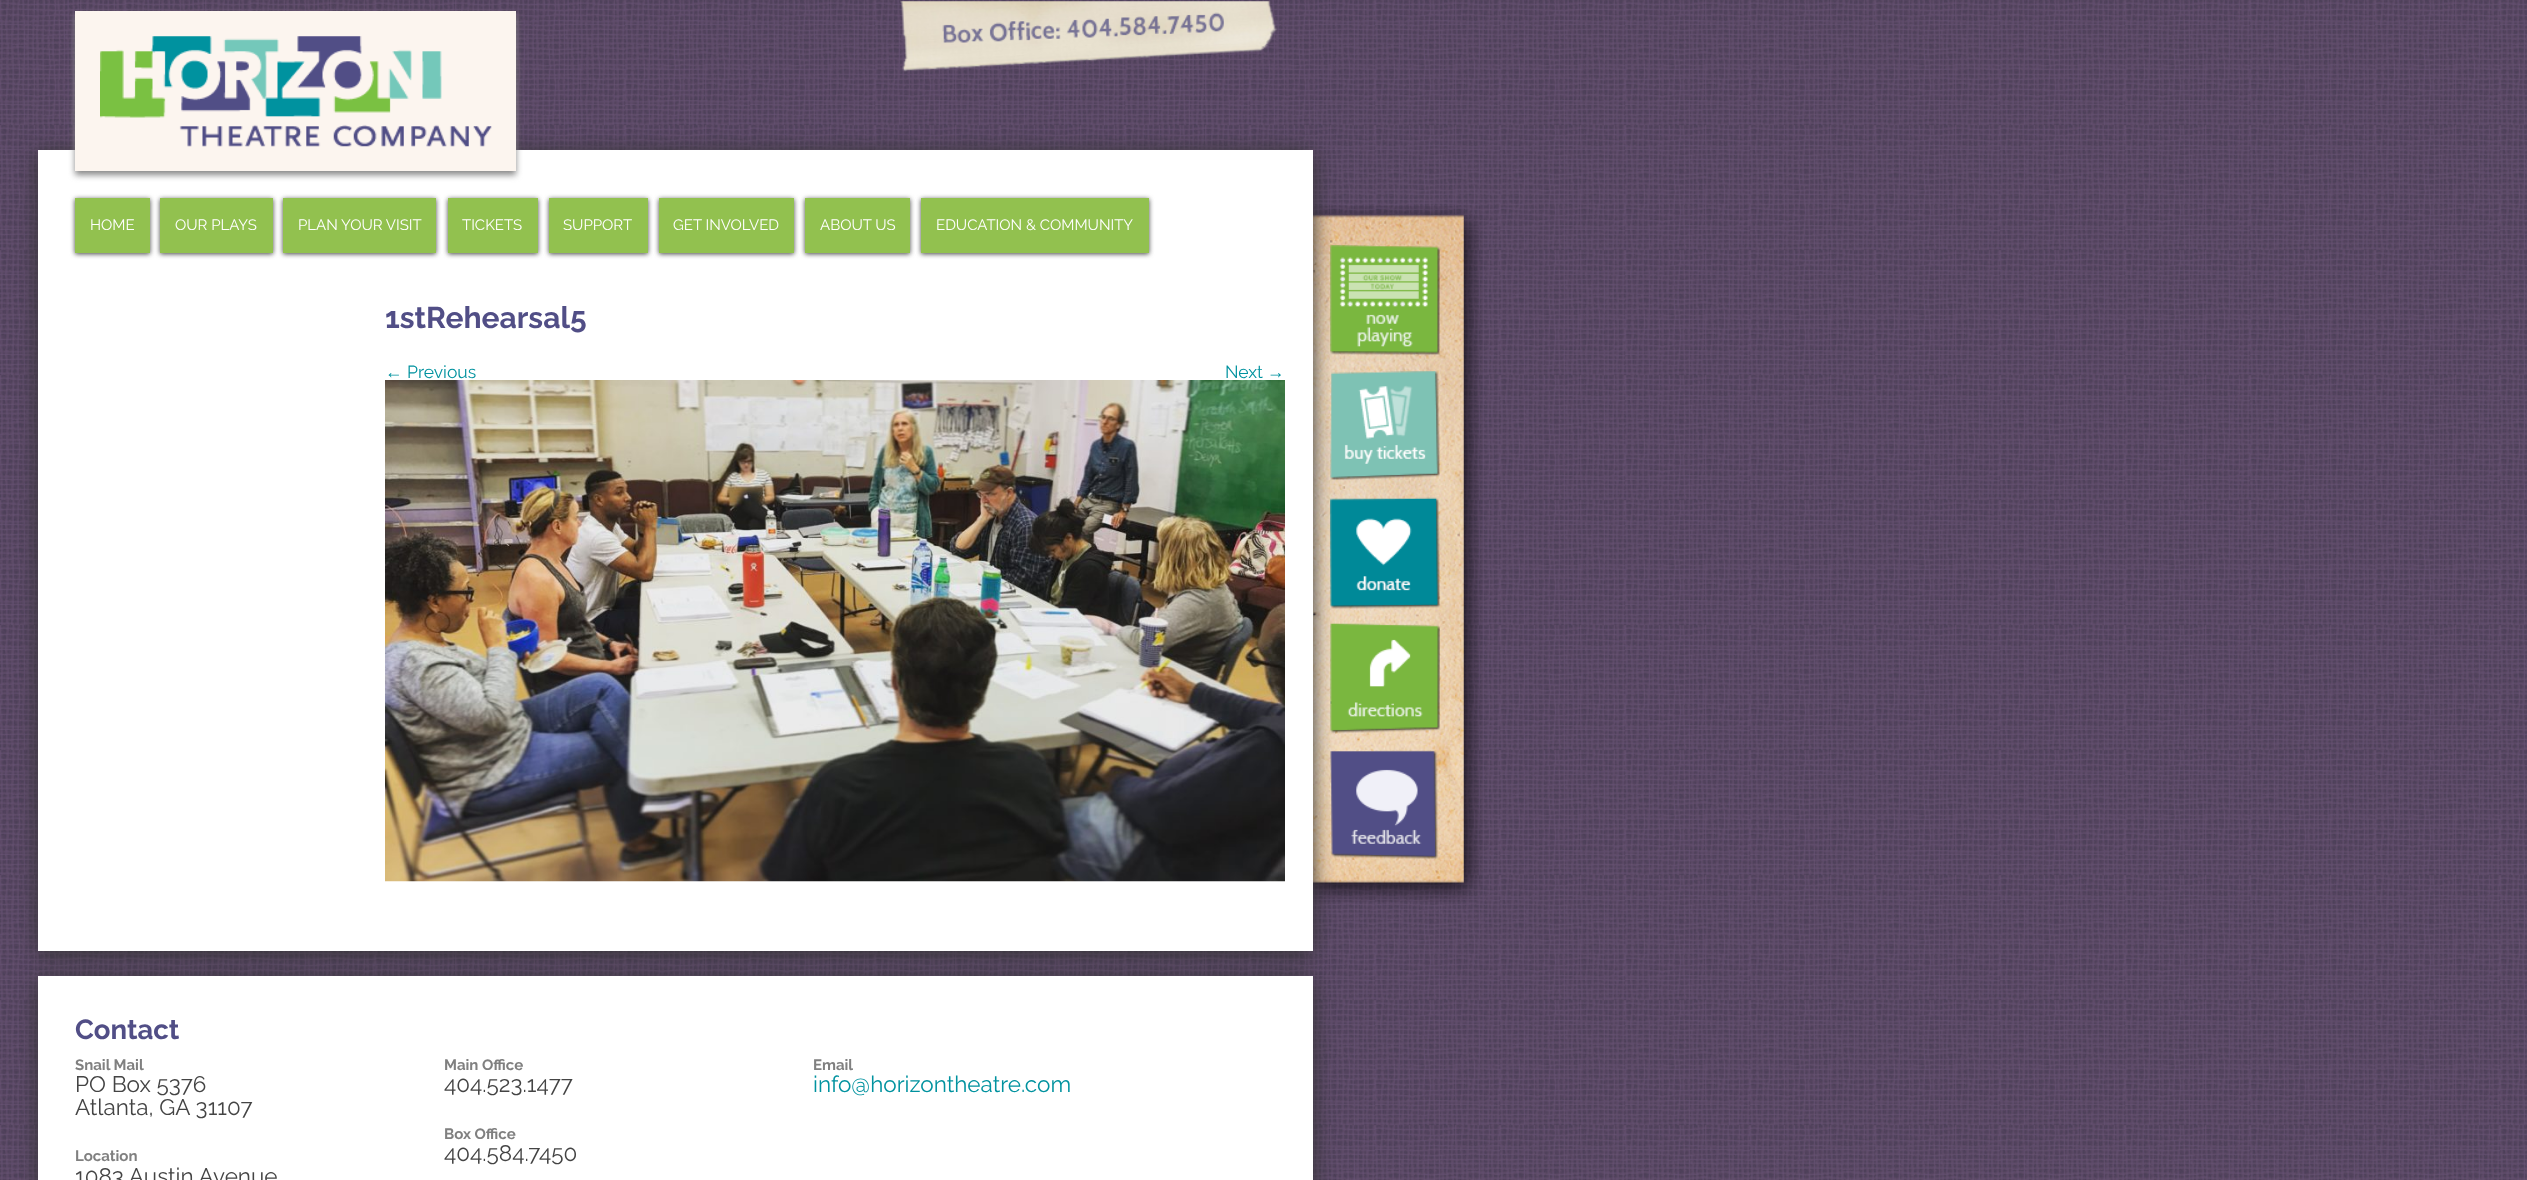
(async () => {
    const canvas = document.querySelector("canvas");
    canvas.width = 2527;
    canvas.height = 1180;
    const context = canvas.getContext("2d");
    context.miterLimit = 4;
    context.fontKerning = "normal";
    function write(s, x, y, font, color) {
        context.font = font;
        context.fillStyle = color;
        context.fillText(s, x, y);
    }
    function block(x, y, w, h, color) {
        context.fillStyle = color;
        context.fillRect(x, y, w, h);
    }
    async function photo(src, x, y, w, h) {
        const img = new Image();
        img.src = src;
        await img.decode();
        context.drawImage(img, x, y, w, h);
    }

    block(0, 0, 2527, 1180, "rgb(255, 255, 255)");
    await photo("media/1.png", 0, 0, 2527, 1180);
    await photo("media/5.png", 1313, 206, 170, 696);
    context.fillStyle = "rgb(51, 51, 51)";
    context.filter = "blur(10px)";
    context.beginPath();
    context.rect(38, 153, 1275, 801);
    context.fill();
    context.filter = "none";
    block(38, 150, 1275, 801, "rgb(255, 255, 255)");
    context.fillStyle = "rgb(136, 136, 136)";
    context.filter = "blur(3px)";
    context.beginPath();
    context.rect(75, 15, 441, 160);
    context.fill();
    context.filter = "none";
    block(75, 11, 441, 160, "rgb(252, 245, 239)");
    await photo("media/2.png", 100, 36, 392, 111);
    await photo("media/3.png", 900, 1, 377, 71);
    context.fillStyle = "rgb(68, 68, 68)";
    context.filter = "blur(2.5px)";
    context.beginPath();
    context.rect(75, 199, 75, 55);
    context.fill();
    context.filter = "none";
    block(75, 198, 75, 55, "rgb(146, 193, 79)");
    write("HOME", 90, 230, "15px Raleway", "rgb(255, 255, 255)");
    context.fillStyle = "rgb(68, 68, 68)";
    context.filter = "blur(2.5px)";
    context.beginPath();
    context.rect(160, 199, 113, 55);
    context.fill();
    context.filter = "none";
    block(160, 198, 113, 55, "rgb(146, 193, 79)");
    write("OUR PLAYS", 175, 230, "15px Raleway", "rgb(255, 255, 255)");
    context.fillStyle = "rgb(68, 68, 68)";
    context.filter = "blur(2.5px)";
    context.beginPath();
    context.rect(283, 199, 153, 55);
    context.fill();
    context.filter = "none";
    block(283, 198, 153, 55, "rgb(146, 193, 79)");
    write("PLAN YOUR VISIT", 298, 230, "15px Raleway", "rgb(255, 255, 255)");
    context.fillStyle = "rgb(68, 68, 68)";
    context.filter = "blur(2.5px)";
    context.beginPath();
    context.rect(448, 199, 90, 55);
    context.fill();
    context.filter = "none";
    block(448, 198, 90, 55, "rgb(146, 193, 79)");
    write("TICKETS", 462, 230, "15px Raleway", "rgb(255, 255, 255)");
    context.fillStyle = "rgb(68, 68, 68)";
    context.filter = "blur(2.5px)";
    context.beginPath();
    context.rect(549, 199, 99, 55);
    context.fill();
    context.filter = "none";
    block(549, 198, 99, 55, "rgb(146, 193, 79)");
    write("SUPPORT", 563, 230, "15px Raleway", "rgb(255, 255, 255)");
    context.fillStyle = "rgb(68, 68, 68)";
    context.filter = "blur(2.5px)";
    context.beginPath();
    context.rect(659, 199, 135, 55);
    context.fill();
    context.filter = "none";
    block(659, 198, 135, 55, "rgb(146, 193, 79)");
    write("GET INVOLVED", 673, 230, "15px Raleway", "rgb(255, 255, 255)");
    context.fillStyle = "rgb(68, 68, 68)";
    context.filter = "blur(2.5px)";
    context.beginPath();
    context.rect(805, 199, 105, 55);
    context.fill();
    context.filter = "none";
    block(805, 198, 105, 55, "rgb(146, 193, 79)");
    write("ABOUT US", 820, 230, "15px Raleway", "rgb(255, 255, 255)");
    context.fillStyle = "rgb(68, 68, 68)";
    context.filter = "blur(2.5px)";
    context.beginPath();
    context.rect(921, 199, 228, 55);
    context.fill();
    context.filter = "none";
    block(921, 198, 228, 55, "rgb(146, 193, 79)");
    write("EDUCATION & COMMUNITY", 936, 230, "15px Raleway", "rgb(255, 255, 255)");
    write("1stRehearsal5", 385, 328, "bold 30px Raleway", "rgb(81, 78, 134)");
    write("←", 385, 378, "17.5px Liberation Sans", "rgb(0, 146, 159)");
    write("Previous", 407, 378, "17.5px Raleway", "rgb(0, 146, 159)");
    write("Next", 1225, 378, "17.5px Raleway", "rgb(0, 146, 159)");
    write("→", 1267, 378, "17.5px Liberation Sans", "rgb(0, 146, 159)");
    await photo("media/4.png", 385, 380, 900, 502);
    await photo("media/6.png", 1330, 245, 110, 110);
    await photo("media/7.png", 1330, 371, 110, 109);
    await photo("media/8.png", 1330, 497, 110, 112);
    await photo("media/9.png", 1330, 623, 110, 111);
    await photo("media/10.png", 1330, 750, 108, 109);
    context.fillStyle = "rgb(51, 51, 51)";
    context.filter = "blur(10px)";
    context.beginPath();
    context.rect(38, 979, 1275, 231);
    context.fill();
    context.filter = "none";
    block(38, 976, 1275, 204, "rgb(255, 255, 255)");
    write("Contact", 75, 1039, "bold 27.5px Raleway", "rgb(81, 78, 134)");
    write("Snail Mail", 75, 1070, "bold 15px Raleway", "rgb(128, 128, 128)");
    write("PO Box 5376", 75, 1092, "22.5px Raleway", "rgb(68, 68, 68)");
    write("Atlanta, GA 31107", 75, 1115, "22.5px Raleway", "rgb(68, 68, 68)");
    write("Location", 75, 1161, "bold 15px Raleway", "rgb(128, 128, 128)");
    write("1083 Austin Avenue", 75, 1184, "22.5px Raleway", "rgb(68, 68, 68)");
    write("Main Office", 444, 1070, "bold 15px Raleway", "rgb(128, 128, 128)");
    write("404.523.1477", 444, 1092, "22.5px Raleway", "rgb(68, 68, 68)");
    write("Box Office", 444, 1139, "bold 15px Raleway", "rgb(128, 128, 128)");
    write("404.584.7450", 444, 1161, "22.5px Raleway", "rgb(68, 68, 68)");
    write("Email", 813, 1070, "bold 15px Raleway", "rgb(128, 128, 128)");
    write("info@horizontheatre.com", 813, 1092, "22.5px Raleway", "rgb(0, 146, 159)");
})();
